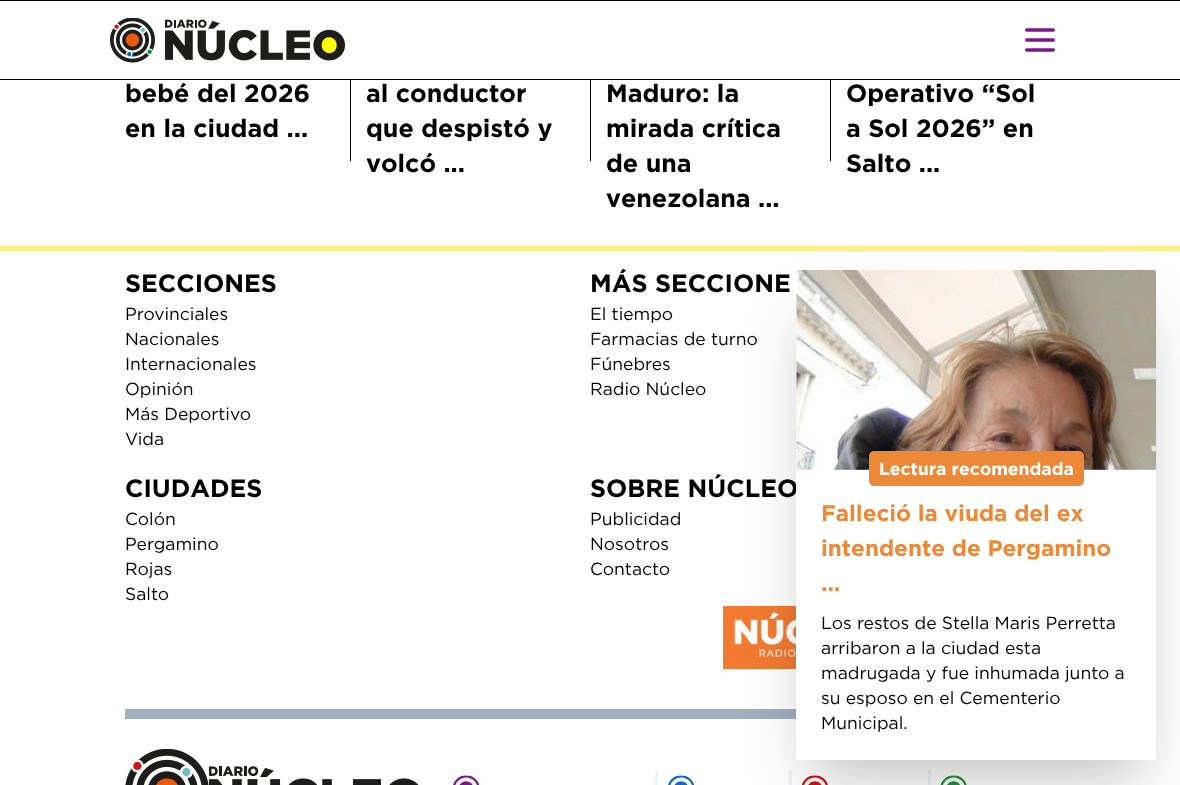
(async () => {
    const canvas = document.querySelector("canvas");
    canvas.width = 1180;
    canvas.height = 785;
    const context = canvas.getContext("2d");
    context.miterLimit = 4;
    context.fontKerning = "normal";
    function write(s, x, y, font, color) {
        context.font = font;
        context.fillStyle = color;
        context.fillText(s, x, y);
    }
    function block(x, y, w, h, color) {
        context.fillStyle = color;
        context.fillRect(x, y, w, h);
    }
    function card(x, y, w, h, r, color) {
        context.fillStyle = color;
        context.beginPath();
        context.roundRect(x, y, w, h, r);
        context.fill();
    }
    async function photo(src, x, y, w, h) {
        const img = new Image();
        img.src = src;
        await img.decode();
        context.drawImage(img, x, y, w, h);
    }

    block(0, 0, 1180, 785, "rgb(255, 255, 255)");
    block(0, 0, 1180, 1, "rgb(0, 0, 0)");
    block(0, 79, 1180, 1, "rgb(0, 0, 0)");
    await photo("media/1.png", 110, 18, 45, 45);
    await photo("media/2.png", 165, 19, 180, 42);
    await photo("media/3.png", 1025, 28, 30, 24);
    write("bebé del 2026", 125, 102, "bold 25px Gotham", "rgb(0, 0, 0)");
    write("en la ciudad ...", 125, 137, "bold 25px Gotham", "rgb(0, 0, 0)");
    block(350, 80, 1, 81, "rgb(0, 0, 0)");
    write("al conductor", 366, 102, "bold 25px Gotham", "rgb(0, 0, 0)");
    write("que despistó y", 366, 137, "bold 25px Gotham", "rgb(0, 0, 0)");
    write("volcó ...", 366, 172, "bold 25px Gotham", "rgb(0, 0, 0)");
    block(590, 80, 1, 81, "rgb(0, 0, 0)");
    write("Maduro: la", 606, 102, "bold 25px Gotham", "rgb(0, 0, 0)");
    write("mirada crítica", 606, 137, "bold 25px Gotham", "rgb(0, 0, 0)");
    write("de una", 606, 172, "bold 25px Gotham", "rgb(0, 0, 0)");
    write("venezolana ...", 606, 207, "bold 25px Gotham", "rgb(0, 0, 0)");
    block(830, 80, 1, 81, "rgb(0, 0, 0)");
    write("Operativo “Sol", 846, 102, "bold 25px Gotham", "rgb(0, 0, 0)");
    write("a Sol 2026” en", 846, 137, "bold 25px Gotham", "rgb(0, 0, 0)");
    write("Salto ...", 846, 172, "bold 25px Gotham", "rgb(0, 0, 0)");
    block(0, 246, 1180, 5, "rgb(250, 240, 137)");
    block(723, 606, 73, 63, "rgb(242, 122, 49)");
    await photo("media/5.png", 734, 611, 62, 48);
    block(125, 709, 671, 10, "rgb(160, 174, 192)");
    block(789, 770, 3, 15, "rgb(237, 242, 247)");
    await photo("media/10.png", 801, 775, 27, 10);
    block(928, 770, 3, 15, "rgb(237, 242, 247)");
    await photo("media/11.png", 940, 775, 27, 10);
    context.fillStyle = "rgba(0, 0, 0, 0.25)";
    context.filter = "blur(31px)";
    context.beginPath();
    context.rect(811, 316, 330, 460);
    context.fill();
    context.filter = "none";
    write("SOBRE NÚCLEO", 590, 497, "bold 25px Gotham", "rgb(0, 0, 0)");
    card(796, 270, 360, 490, 2.5, "rgb(255, 255, 255)");
    await photo("media/4.png", 796, 270, 361, 200);
    card(869, 451, 215, 35, 5, "rgb(237, 137, 54)");
    write("Lectura recomendada", 879, 475, "bold 17.5px Gotham", "rgb(255, 255, 255)");
    write("Falleció la viuda del ex", 821, 521, "bold 22.5px Gotham", "rgb(237, 137, 54)");
    write("intendente de Pergamino", 821, 556, "bold 22.5px Gotham", "rgb(237, 137, 54)");
    write("...", 821, 591, "bold 22.5px Gotham", "rgb(237, 137, 54)");
    write("Los restos de Stella Maris Perretta", 821, 629, "17.5px Gotham", "rgb(0, 0, 0)");
    write("arribaron a la ciudad esta", 821, 654, "17.5px Gotham", "rgb(0, 0, 0)");
    write("madrugada y fue inhumada junto a", 821, 679, "17.5px Gotham", "rgb(0, 0, 0)");
    write("su esposo en el Cementerio", 821, 704, "17.5px Gotham", "rgb(0, 0, 0)");
    write("Municipal.", 821, 729, "17.5px Gotham", "rgb(0, 0, 0)");
    write("SECCIONES", 125, 292, "bold 25px Gotham", "rgb(0, 0, 0)");
    write("Provinciales", 125, 320, "17.5px Gotham", "rgb(0, 0, 0)");
    write("Nacionales", 125, 345, "17.5px Gotham", "rgb(0, 0, 0)");
    write("Internacionales", 125, 370, "17.5px Gotham", "rgb(0, 0, 0)");
    write("Opinión", 125, 395, "17.5px Gotham", "rgb(0, 0, 0)");
    write("Más Deportivo", 125, 420, "17.5px Gotham", "rgb(0, 0, 0)");
    write("Vida", 125, 445, "17.5px Gotham", "rgb(0, 0, 0)");
    write("MÁS SECCIONE", 590, 292, "bold 25px Gotham", "rgb(0, 0, 0)");
    write("El tiempo", 590, 320, "17.5px Gotham", "rgb(0, 0, 0)");
    write("Farmacias de turno", 590, 345, "17.5px Gotham", "rgb(0, 0, 0)");
    write("Fúnebres", 590, 370, "17.5px Gotham", "rgb(0, 0, 0)");
    write("Radio Núcleo", 590, 395, "17.5px Gotham", "rgb(0, 0, 0)");
    write("CIUDADES", 125, 497, "bold 25px Gotham", "rgb(0, 0, 0)");
    write("Colón", 125, 525, "17.5px Gotham", "rgb(0, 0, 0)");
    write("Pergamino", 125, 550, "17.5px Gotham", "rgb(0, 0, 0)");
    write("Rojas", 125, 575, "17.5px Gotham", "rgb(0, 0, 0)");
    write("Salto", 125, 600, "17.5px Gotham", "rgb(0, 0, 0)");
    write("Publicidad", 590, 525, "17.5px Gotham", "rgb(0, 0, 0)");
    write("Nosotros", 590, 550, "17.5px Gotham", "rgb(0, 0, 0)");
    write("Contacto", 590, 575, "17.5px Gotham", "rgb(0, 0, 0)");
    await photo("media/6.png", 125, 749, 84, 36);
    await photo("media/7.png", 209, 766, 210, 19);
    await photo("media/8.png", 453, 775, 26, 10);
    block(655, 770, 3, 15, "rgb(237, 242, 247)");
    await photo("media/9.png", 668, 775, 26, 10);
})();
